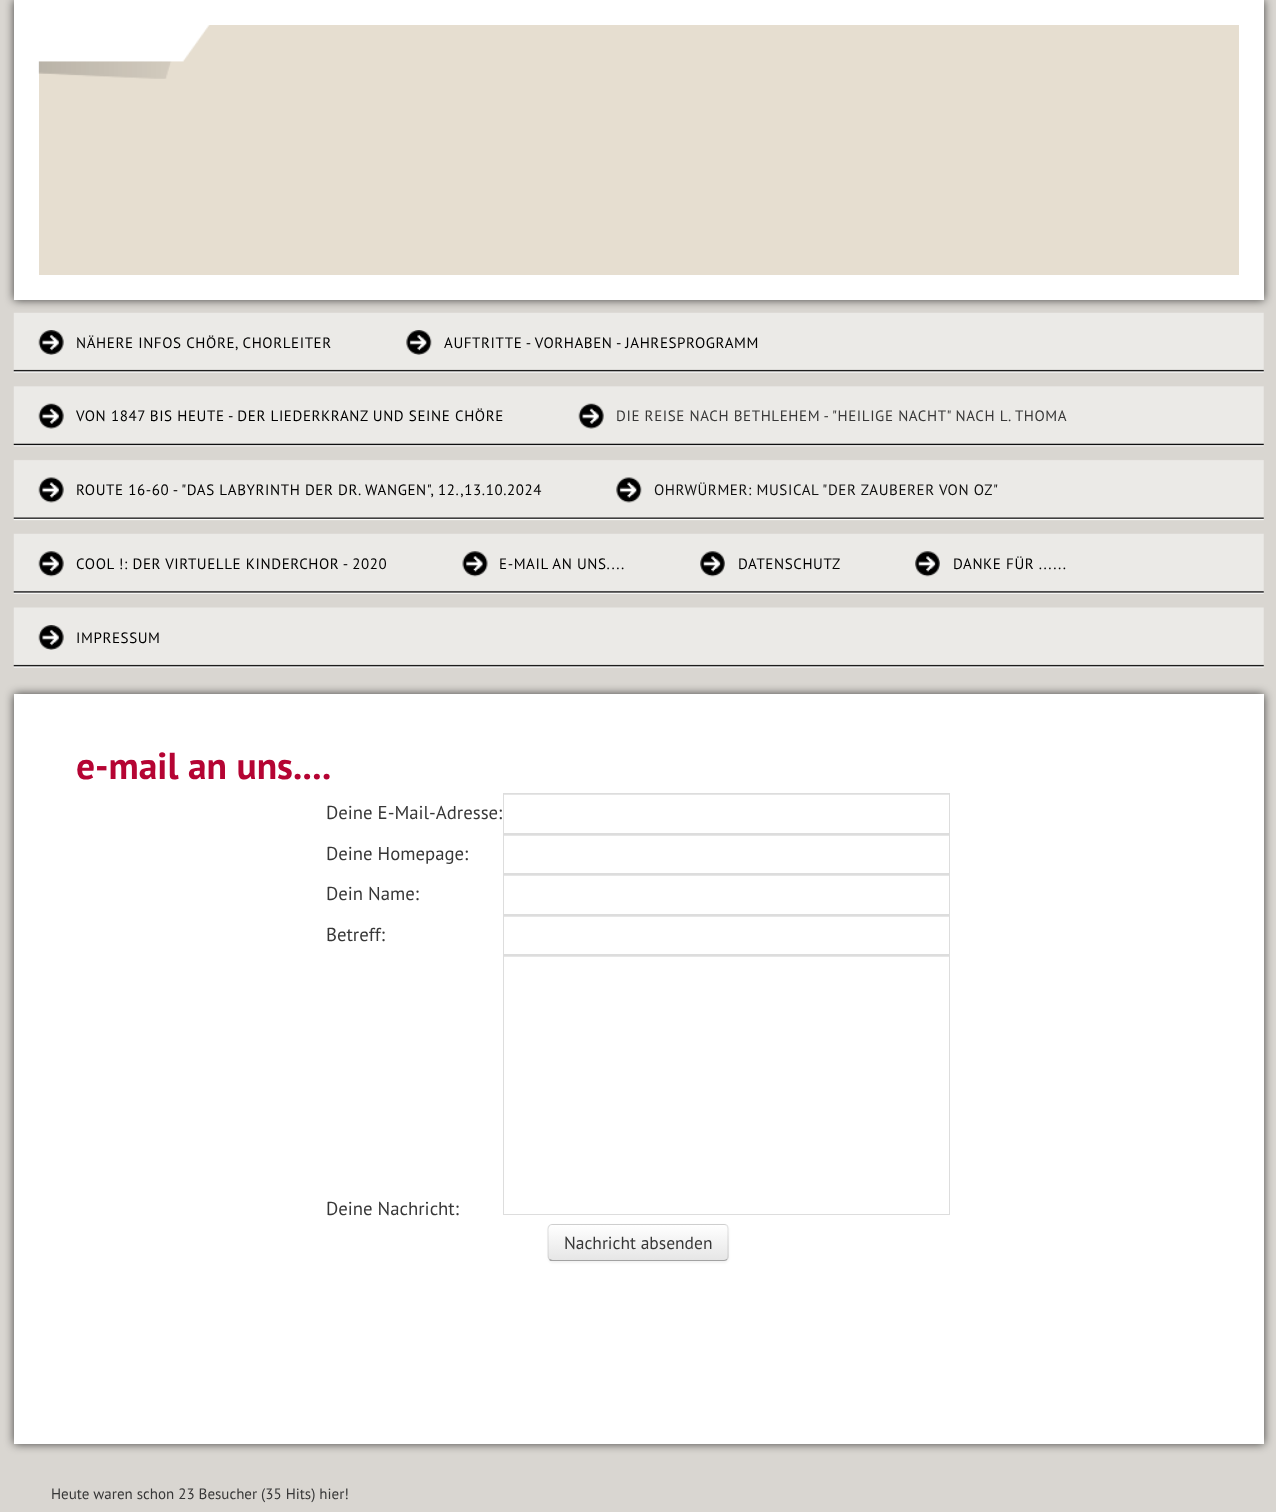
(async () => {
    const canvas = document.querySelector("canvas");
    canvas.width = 1276;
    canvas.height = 1512;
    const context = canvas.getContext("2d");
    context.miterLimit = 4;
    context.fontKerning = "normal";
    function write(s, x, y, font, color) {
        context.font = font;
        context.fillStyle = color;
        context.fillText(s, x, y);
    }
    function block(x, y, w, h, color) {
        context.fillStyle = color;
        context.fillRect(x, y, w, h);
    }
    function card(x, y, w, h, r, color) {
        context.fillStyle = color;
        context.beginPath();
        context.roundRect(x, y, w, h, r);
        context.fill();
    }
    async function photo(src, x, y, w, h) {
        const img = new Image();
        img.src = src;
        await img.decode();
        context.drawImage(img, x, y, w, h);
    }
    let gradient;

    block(0, 0, 1276, 1512, "rgb(217, 214, 209)");
    await photo("media/2.png", 13, 312, 1251, 356);
    context.fillStyle = "rgba(0, 0, 0, 0.7)";
    context.filter = "blur(5px)";
    context.beginPath();
    context.rect(14, 0, 1250, 300);
    context.fill();
    context.filter = "none";
    block(14, 0, 1250, 300, "rgb(255, 255, 255)");
    block(39, 25, 1200, 250, "rgb(230, 222, 208)");
    await photo("media/1.png", 38, 25, 172, 54);
    await photo("media/3.png", 38, 330, 26, 25);
    context.letterSpacing = "0.6px";
    write("NÄHERE INFOS CHÖRE, CHORLEITER", 76, 348, "15px PT Sans", "rgb(0, 0, 0)");
    await photo("media/4.png", 406, 330, 26, 25);
    write("AUFTRITTE - VORHABEN - JAHRESPROGRAMM", 444, 348, "15px PT Sans", "rgb(0, 0, 0)");
    await photo("media/5.png", 38, 403, 26, 26);
    write("VON 1847 BIS HEUTE - DER LIEDERKRANZ UND SEINE CHÖRE", 76, 421, "15px PT Sans", "rgb(0, 0, 0)");
    await photo("media/6.png", 578, 403, 26, 26);
    write("DIE REISE NACH BETHLEHEM - \"HEILIGE NACHT\" NACH L. THOMA", 616, 421, "15px PT Sans", "rgb(55, 55, 55)");
    await photo("media/7.png", 38, 477, 26, 26);
    write("ROUTE 16-60 - \"DAS LABYRINTH DER DR. WANGEN\", 12.,13.10.2024", 76, 495, "15px PT Sans", "rgb(0, 0, 0)");
    await photo("media/8.png", 616, 477, 26, 26);
    write("OHRWÜRMER: MUSICAL \"DER ZAUBERER VON OZ\"", 654, 495, "15px PT Sans", "rgb(15, 15, 15)");
    await photo("media/9.png", 38, 551, 26, 26);
    write("COOL !: DER VIRTUELLE KINDERCHOR - 2020", 76, 569, "15px PT Sans", "rgb(0, 0, 0)");
    await photo("media/10.png", 462, 551, 26, 26);
    write("E-MAIL AN UNS....", 499, 569, "15px PT Sans", "rgb(0, 0, 0)");
    await photo("media/11.png", 700, 551, 25, 26);
    write("DATENSCHUTZ", 738, 569, "15px PT Sans", "rgb(0, 0, 0)");
    await photo("media/12.png", 915, 551, 25, 26);
    write("DANKE FÜR ......", 953, 569, "15px PT Sans", "rgb(0, 0, 0)");
    await photo("media/3.png", 38, 625, 26, 25);
    write("IMPRESSUM", 76, 643, "15px PT Sans", "rgb(0, 0, 0)");
    context.fillStyle = "rgba(0, 0, 0, 0.7)";
    context.filter = "blur(5px)";
    context.beginPath();
    context.rect(14, 694, 1250, 750);
    context.fill();
    context.filter = "none";
    block(14, 694, 1250, 750, "rgb(255, 255, 255)");
    context.letterSpacing = "0px";
    write("e-mail an uns....", 76, 779, "bold 37.5px PT Sans", "rgb(181, 4, 51)");
    write("Deine E-Mail-Adresse:", 326, 819, "18.75px PT Sans", "rgb(55, 55, 55)");
    block(504, 794, 445, 1, "rgb(230, 230, 230)");
    context.strokeStyle = "rgb(221, 221, 221)";
    context.strokeRect(503.5, 793.5, 446, 40);
    write("Deine Homepage:", 326, 860, "18.75px PT Sans", "rgb(55, 55, 55)");
    block(504, 835, 445, 1, "rgb(230, 230, 230)");
    context.strokeRect(503.5, 834.5, 446, 39);
    write("Dein Name:", 326, 900, "18.75px PT Sans", "rgb(55, 55, 55)");
    block(504, 875, 445, 1, "rgb(230, 230, 230)");
    context.strokeRect(503.5, 874.5, 446, 40);
    write("Betreff:", 326, 941, "18.75px PT Sans", "rgb(55, 55, 55)");
    block(504, 916, 445, 1, "rgb(230, 230, 230)");
    context.strokeRect(503.5, 915.5, 446, 39);
    write("Deine Nachricht:", 326, 1215, "18.75px PT Sans", "rgb(55, 55, 55)");
    block(504, 956, 445, 1, "rgb(230, 230, 230)");
    context.strokeRect(503.5, 955.5, 446, 259);
    context.fillStyle = "rgba(0, 0, 0, 0.05)";
    context.filter = "blur(1px)";
    context.beginPath();
    context.roundRect(548, 1225, 181, 38, 5);
    context.fill();
    context.filter = "none";
    card(548, 1224, 181, 37, 5, "rgb(230, 230, 230)");
    context.save();
    context.beginPath();
    context.roundRect(548, 1224, 181, 37, 5);
    context.clip();
    gradient = context.createLinearGradient(638, 1225, 638, 1260);
    gradient.addColorStop(0, "rgb(255, 255, 255)");
    gradient.addColorStop(1, "rgb(230, 230, 230)");
    context.fillStyle = gradient;
    context.fillRect(548, 1225, 181, 35);
    context.restore();
    context.beginPath();
    context.moveTo(727, 1259.5);
    context.bezierCurveTo(726, 1260, 725, 1260.5, 724, 1260.5);
    context.lineTo(552.5, 1260.5);
    context.bezierCurveTo(551.5, 1260.5, 550, 1260, 549.5, 1259.5);
    context.strokeStyle = "rgb(162, 162, 162)";
    context.lineWidth = 1.2;
    context.stroke();
    context.beginPath();
    context.moveTo(549.5, 1259.5);
    context.bezierCurveTo(548.5, 1258.5, 548, 1257.5, 548, 1256);
    context.lineTo(548, 1229);
    context.bezierCurveTo(548, 1227.5, 548.5, 1226.5, 549.5, 1225.5);
    context.bezierCurveTo(550, 1225, 551.5, 1224.5, 552.5, 1224.5);
    context.lineTo(724, 1224.5);
    context.bezierCurveTo(725, 1224.5, 726, 1225, 727, 1225.5);
    context.bezierCurveTo(727.5, 1226.5, 728, 1227.5, 728, 1229);
    context.lineTo(728, 1256);
    context.bezierCurveTo(728, 1257.5, 727.5, 1258.5, 727, 1259.5);
    context.strokeStyle = "rgba(0, 0, 0, 0.1)";
    context.stroke();
    write("Nachricht absenden", 564, 1249, "17.5px PT Sans", "rgb(55, 55, 55)");
    write("Heute waren schon 23 Besucher (35 Hits) hier!", 51, 1499, "15px PT Sans", "rgb(55, 55, 55)");
})();
